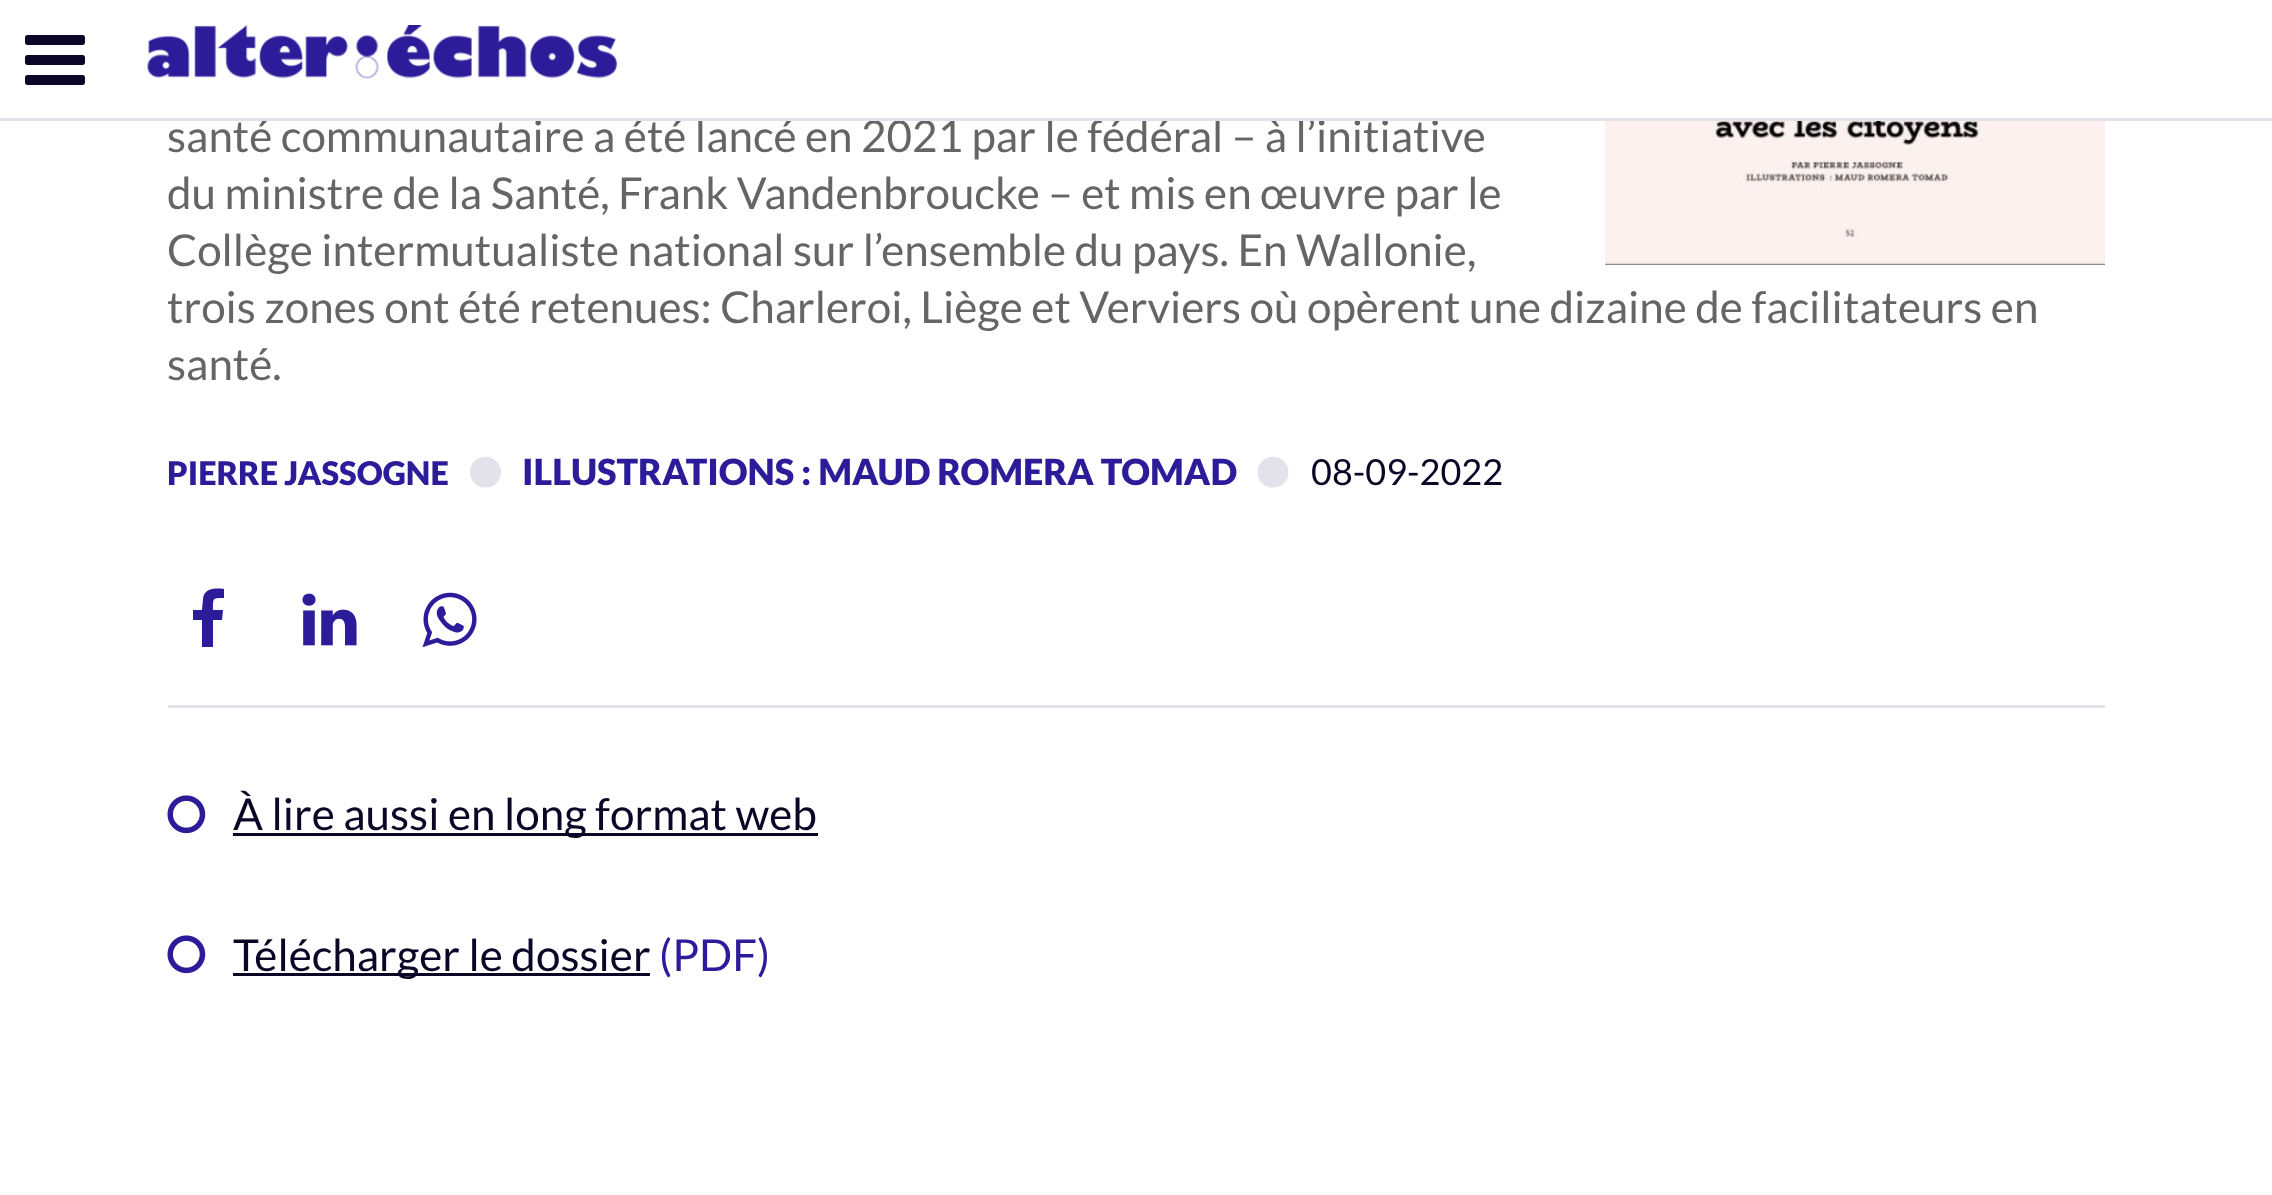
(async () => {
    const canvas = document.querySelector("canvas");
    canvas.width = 2272;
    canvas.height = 1195;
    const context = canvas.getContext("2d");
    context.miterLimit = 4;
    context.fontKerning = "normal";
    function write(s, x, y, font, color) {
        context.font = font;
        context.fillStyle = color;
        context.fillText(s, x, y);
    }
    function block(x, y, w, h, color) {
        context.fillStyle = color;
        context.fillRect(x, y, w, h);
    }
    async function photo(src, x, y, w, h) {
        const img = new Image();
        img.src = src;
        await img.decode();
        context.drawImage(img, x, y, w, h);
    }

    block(0, 0, 2272, 1195, "rgb(255, 255, 255)");
    write("santé communautaire a été lancé en 2021 par le fédéral – à l’initiative", 167, 152, "44px Lato", "rgb(101, 101, 101)");
    block(0, 118, 2272, 3, "rgb(227, 226, 235)");
    await photo("media/1.png", 25, 35, 60, 50);
    await photo("media/2.png", 147, 25, 470, 54);
    block(168, 705, 1937, 3, "rgb(227, 226, 235)");
    write("du ministre de la Santé, Frank Vandenbroucke – et mis en œuvre par le", 167, 209, "44px Lato", "rgb(101, 101, 101)");
    write("Collège intermutualiste national sur l’ensemble du pays. En Wallonie,", 167, 266, "44px Lato", "rgb(101, 101, 101)");
    context.save();
    context.beginPath();
    context.rect(168, 0, 1937, 705);
    context.clip();
    write("trois zones ont été retenues: Charleroi, Liège et Verviers où opèrent une dizaine de facilitateurs en", 167, 323, "44px Lato", "rgb(101, 101, 101)");
    context.restore();
    write("santé.", 167, 380, "44px Lato", "rgb(101, 101, 101)");
    await photo("media/3.png", 1605, 121, 500, 144);
    write("PIERRE JASSOGNE", 167, 485, "900 32.5px Lato", "rgb(44, 28, 153)");
    context.fillStyle = "rgb(227, 226, 235)";
    context.beginPath();
    context.moveTo(499, 464.5);
    context.bezierCurveTo(500.5, 467, 501, 470, 501, 473);
    context.bezierCurveTo(500, 488.5, 479.5, 493, 472, 480);
    context.bezierCurveTo(470.5, 477, 470, 474, 470, 471);
    context.bezierCurveTo(471, 456, 491, 451.5, 499, 464.5);
    context.closePath();
    context.fill();
    write("ILLUSTRATIONS : MAUD ROMERA TOMAD", 522, 485, "900 36px Lato", "rgb(44, 28, 153)");
    context.fillStyle = "rgb(227, 226, 235)";
    context.beginPath();
    context.moveTo(1286.5, 464.5);
    context.bezierCurveTo(1288, 467, 1288.5, 470, 1288.5, 473);
    context.bezierCurveTo(1287.5, 488.5, 1267, 493, 1259.5, 480);
    context.bezierCurveTo(1258, 477, 1257.5, 474, 1257.5, 471);
    context.bezierCurveTo(1258.5, 456, 1278.5, 451.5, 1286.5, 464.5);
    context.closePath();
    context.fill();
    write("08-09-2022", 1311, 485, "36px Lato", "rgb(11, 6, 38)");
    context.fillStyle = "rgb(44, 28, 153)";
    context.beginPath();
    context.moveTo(224, 589);
    context.lineTo(224, 598);
    context.bezierCurveTo(212, 598, 213, 598, 213, 610);
    context.lineTo(223, 610);
    context.lineTo(222, 620);
    context.lineTo(213, 620);
    context.lineTo(213, 647);
    context.lineTo(202, 647);
    context.lineTo(202, 620);
    context.lineTo(193, 620);
    context.lineTo(193, 610);
    context.lineTo(202, 610);
    context.lineTo(203, 599);
    context.bezierCurveTo(204, 588, 215, 588, 224, 589);
    context.closePath();
    context.fill();
    await photo("media/4.png", 302, 593, 55, 53);
    await photo("media/5.png", 422, 592, 55, 56);
    await photo("media/6.png", 167, 795, 39, 39);
    block(233, 833, 585, 3, "rgb(11, 6, 38)");
    write("À lire aussi en long format web", 233, 830, "44px Lato", "rgb(11, 6, 38)");
    await photo("media/6.png", 167, 935, 39, 39);
    block(233, 973, 417, 3, "rgb(11, 6, 38)");
    write("Télécharger le dossier", 233, 971, "44px Lato", "rgb(11, 6, 38)");
    write("(PDF)", 659, 971, "44px Lato", "rgb(44, 28, 153)");
})();
